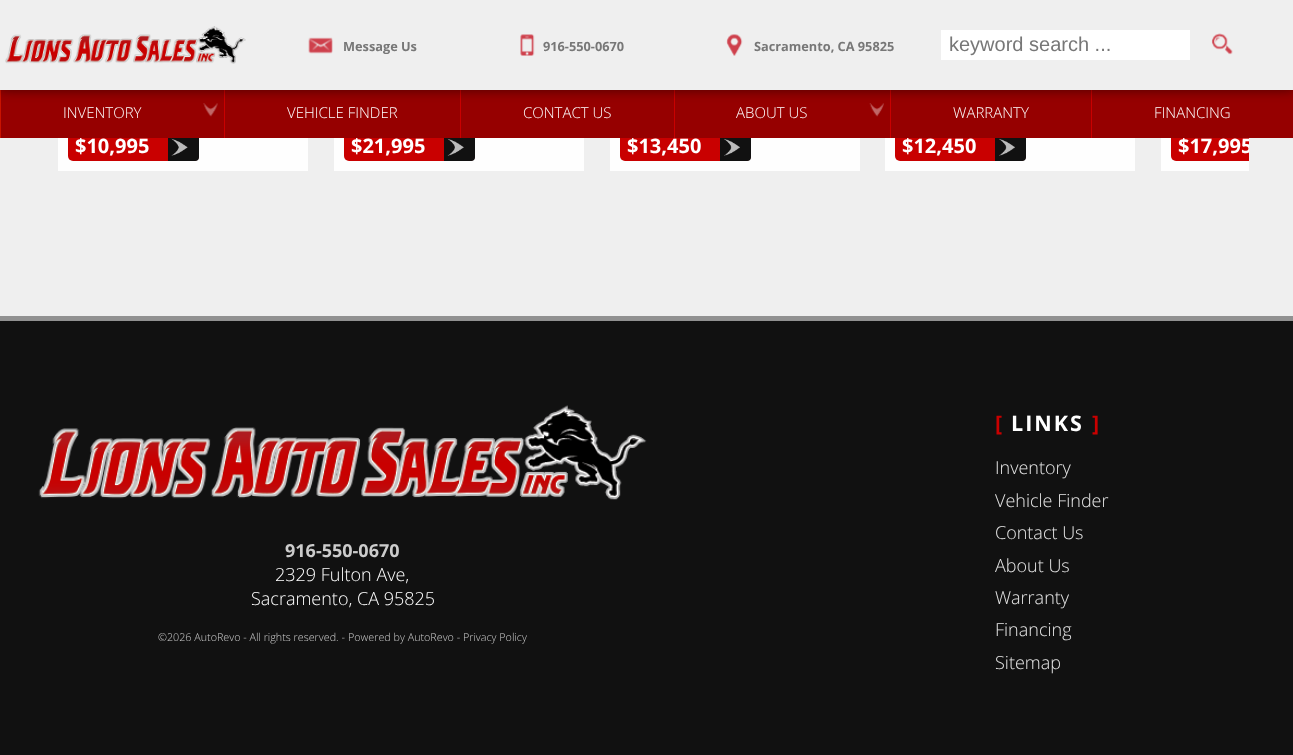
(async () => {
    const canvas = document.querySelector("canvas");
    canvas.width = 1293;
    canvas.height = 755;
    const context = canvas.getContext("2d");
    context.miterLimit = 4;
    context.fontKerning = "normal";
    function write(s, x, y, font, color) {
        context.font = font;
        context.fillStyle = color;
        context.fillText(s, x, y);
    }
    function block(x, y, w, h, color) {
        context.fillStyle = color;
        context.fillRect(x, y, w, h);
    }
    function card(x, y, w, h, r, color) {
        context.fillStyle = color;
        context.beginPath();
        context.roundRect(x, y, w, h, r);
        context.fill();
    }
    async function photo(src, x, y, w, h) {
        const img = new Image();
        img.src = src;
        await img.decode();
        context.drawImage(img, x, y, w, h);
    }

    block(0, 0, 1293, 755, "rgb(239, 239, 239)");
    block(58, 138, 250, 33, "rgb(254, 254, 254)");
    card(68, 131, 131, 30, 5, "rgb(201, 0, 0)");
    write("$10,995", 75, 153, "bold 20px Open Sans", "rgb(255, 255, 255)");
    context.fillStyle = "rgb(17, 17, 17)";
    context.beginPath();
    context.roundRect(168, 131, 31, 30, [0, 4, 4, 0]);
    context.fill();
    block(334, 138, 250, 33, "rgb(254, 254, 254)");
    card(344, 131, 131, 30, 5, "rgb(201, 0, 0)");
    write("$21,995", 351, 153, "bold 20px Open Sans", "rgb(255, 255, 255)");
    context.fillStyle = "rgb(17, 17, 17)";
    context.beginPath();
    context.roundRect(444, 131, 31, 30, [0, 4, 4, 0]);
    context.fill();
    block(610, 138, 250, 33, "rgb(254, 254, 254)");
    card(620, 131, 131, 30, 5, "rgb(201, 0, 0)");
    write("$13,450", 627, 153, "bold 20px Open Sans", "rgb(255, 255, 255)");
    context.fillStyle = "rgb(17, 17, 17)";
    context.beginPath();
    context.roundRect(720, 131, 31, 30, [0, 4, 4, 0]);
    context.fill();
    block(885, 138, 250, 33, "rgb(254, 254, 254)");
    card(895, 131, 131, 30, 5, "rgb(201, 0, 0)");
    write("$12,450", 902, 153, "bold 20px Open Sans", "rgb(255, 255, 255)");
    context.fillStyle = "rgb(17, 17, 17)";
    context.beginPath();
    context.roundRect(995, 131, 31, 30, [0, 4, 4, 0]);
    context.fill();
    block(1161, 138, 88, 33, "rgb(254, 254, 254)");
    context.fillStyle = "rgb(201, 0, 0)";
    context.beginPath();
    context.roundRect(1171, 131, 78, 30, [5, 0, 0, 5]);
    context.fill();
    context.save();
    context.beginPath();
    context.rect(45, 0, 1204, 184);
    context.clip();
    write("$17,995", 1178, 153, "bold 20px Open Sans", "rgb(255, 255, 255)");
    context.restore();
    block(1, 90, 1292, 48, "rgb(150, 0, 0)");
    block(224, 90, 1, 48, "rgb(201, 0, 0)");
    block(0, 90, 1, 48, "rgb(201, 19, 0)");
    await photo("media/6.png", 203, 103, 15, 14);
    block(460, 90, 1, 48, "rgb(201, 0, 0)");
    block(674, 90, 1, 48, "rgb(201, 0, 0)");
    block(890, 90, 1, 48, "rgb(201, 0, 0)");
    await photo("media/7.png", 869, 103, 15, 14);
    block(1091, 90, 1, 48, "rgb(201, 0, 0)");
    context.fillStyle = "rgba(0, 0, 0, 0.5)";
    context.filter = "blur(6px)";
    context.beginPath();
    context.rect(0, 0, 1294, 90);
    context.fill();
    context.filter = "none";
    block(0, 0, 1293, 90, "rgb(239, 239, 239)");
    await photo("media/1.png", 5, 26, 241, 38);
    await photo("media/2.png", 308, 37, 25, 17);
    write("Message Us", 343, 51, "bold 12.75px Open Sans", "rgb(119, 119, 119)");
    await photo("media/3.png", 520, 34, 15, 22);
    write("916-550-0670", 543, 51, "bold 12.75px Open Sans", "rgb(119, 119, 119)");
    await photo("media/4.png", 726, 34, 17, 22);
    write("Sacramento, CA 95825", 754, 51, "bold 12.75px Open Sans", "rgb(119, 119, 119)");
    block(941, 30, 249, 30, "rgb(255, 255, 255)");
    write("keyword search ...", 949, 51, "20px Liberation Sans", "rgb(119, 119, 119)");
    await photo("media/5.png", 1211, 33, 22, 22);
    write("INVENTORY", 63, 118, "300 15px Open Sans", "rgb(255, 255, 255)");
    write("VEHICLE FINDER", 287, 118, "300 15px Open Sans", "rgb(255, 255, 255)");
    write("CONTACT US", 523, 118, "300 15px Open Sans", "rgb(255, 255, 255)");
    write("ABOUT US", 736, 118, "300 15px Open Sans", "rgb(255, 255, 255)");
    write("WARRANTY", 953, 118, "300 15px Open Sans", "rgb(255, 255, 255)");
    write("FINANCING", 1154, 118, "300 15px Open Sans", "rgb(255, 255, 255)");
    await photo("media/8.png", 171, 138, 17, 18);
    await photo("media/9.png", 447, 138, 17, 18);
    await photo("media/10.png", 724, 138, 16, 18);
    await photo("media/10.png", 999, 138, 16, 18);
    block(0, 321, 1293, 434, "rgb(17, 17, 17)");
    block(0, 316, 1293, 5, "rgb(145, 145, 145)");
    await photo("media/11.png", 38, 405, 609, 95);
    write("916-550-0670", 285, 557, "bold 18px Open Sans", "rgb(204, 204, 204)");
    write("2329 Fulton Ave,", 275, 581, "300 18px Open Sans", "rgb(255, 255, 255)");
    write("Sacramento, CA 95825", 251, 605, "300 18px Open Sans", "rgb(255, 255, 255)");
    write("©2026 AutoRevo - All rights reserved. -", 158, 641, "300 10.75px Open Sans", "rgb(204, 204, 204)");
    write("Powered by AutoRevo - Privacy Policy", 348, 641, "300 10.75px Open Sans", "rgb(204, 204, 204)");
    context.letterSpacing = "2px";
    write("[", 995, 431, "bold 21.5px Open Sans", "rgb(201, 0, 0)");
    write("LINKS", 1011, 431, "bold 21.5px Open Sans", "rgb(255, 255, 255)");
    write("]", 1092, 431, "bold 21.5px Open Sans", "rgb(201, 0, 0)");
    context.letterSpacing = "0px";
    write("Inventory", 995, 474, "300 18px Open Sans", "rgb(230, 230, 230)");
    write("Vehicle Finder", 995, 507, "300 18px Open Sans", "rgb(230, 230, 230)");
    write("Contact Us", 995, 539, "300 18px Open Sans", "rgb(230, 230, 230)");
    write("About Us", 995, 572, "300 18px Open Sans", "rgb(230, 230, 230)");
    write("Warranty", 995, 604, "300 18px Open Sans", "rgb(230, 230, 230)");
    write("Financing", 995, 636, "300 18px Open Sans", "rgb(230, 230, 230)");
    write("Sitemap", 995, 669, "300 18px Open Sans", "rgb(230, 230, 230)");
})();
